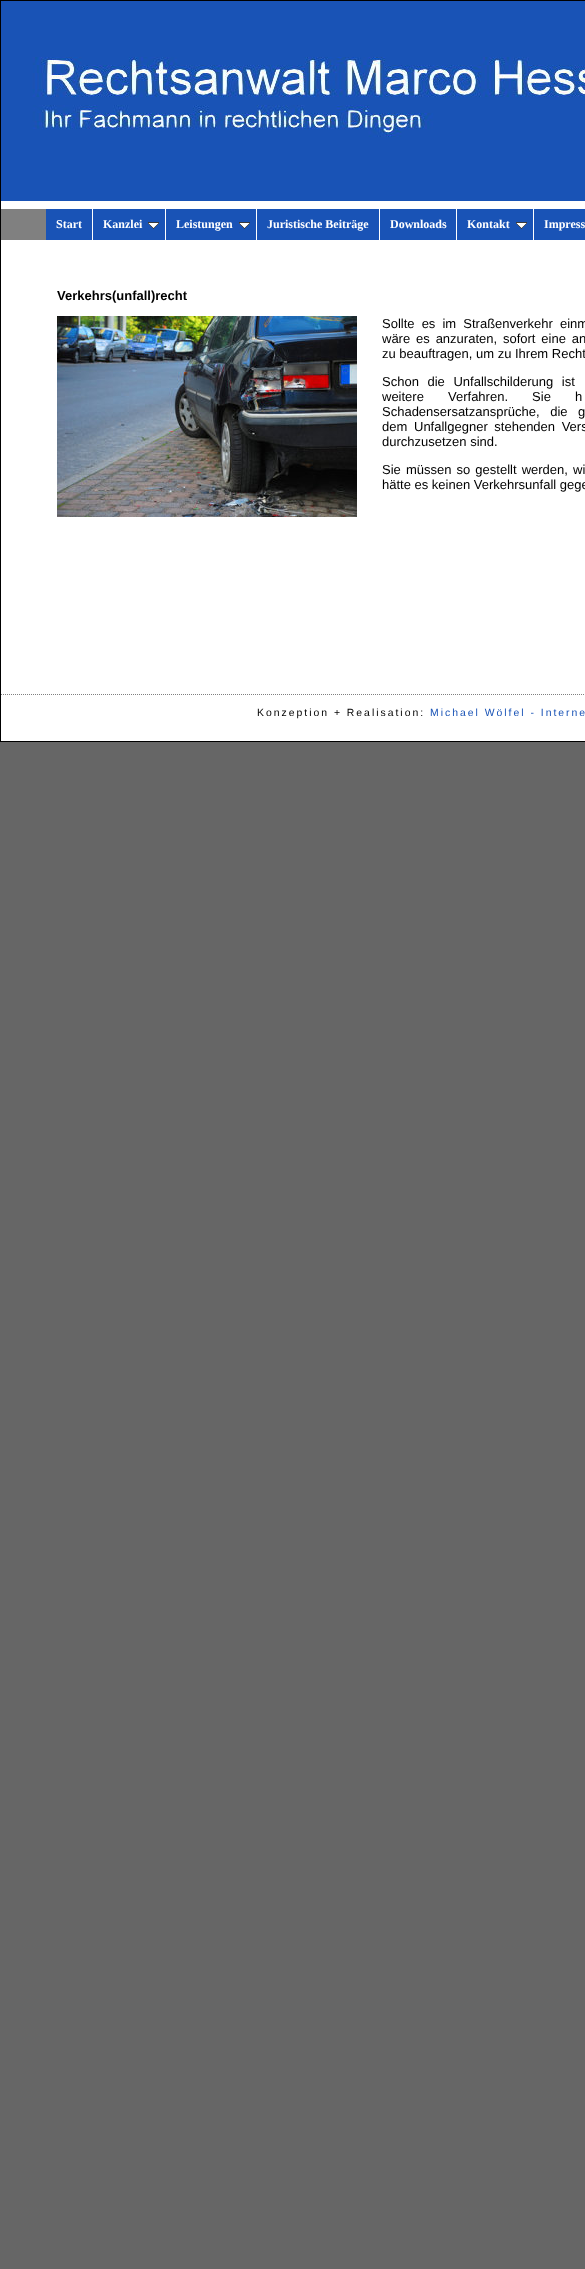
(async () => {
    const canvas = document.querySelector("canvas");
    canvas.width = 585;
    canvas.height = 2269;
    const context = canvas.getContext("2d");
    context.miterLimit = 4;
    context.fontKerning = "normal";
    function write(s, x, y, font, color) {
        context.font = font;
        context.fillStyle = color;
        context.fillText(s, x, y);
    }
    function block(x, y, w, h, color) {
        context.fillStyle = color;
        context.fillRect(x, y, w, h);
    }
    async function photo(src, x, y, w, h) {
        const img = new Image();
        img.src = src;
        await img.decode();
        context.drawImage(img, x, y, w, h);
    }

    block(0, 0, 585, 2269, "rgb(102, 102, 102)");
    block(1, 201, 584, 540, "rgb(255, 255, 255)");
    context.strokeStyle = "rgb(0, 0, 0)";
    context.strokeRect(0.5, 0.5, 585, 741);
    await photo("media/1.png", 1, 1, 584, 200);
    block(1, 209, 45, 31, "rgb(128, 128, 128)");
    block(46, 209, 46, 31, "rgb(25, 83, 182)");
    write("Start", 56, 228, "bold 12px Liberation Serif", "rgb(255, 255, 255)");
    block(93, 209, 72, 31, "rgb(25, 83, 182)");
    write("Kanzlei", 103, 228, "bold 12px Liberation Serif", "rgb(255, 255, 255)");
    await photo("media/2.png", 148, 222, 11, 7);
    block(166, 209, 90, 31, "rgb(25, 83, 182)");
    write("Leistungen", 176, 228, "bold 12px Liberation Serif", "rgb(255, 255, 255)");
    await photo("media/2.png", 239, 222, 11, 7);
    block(257, 209, 122, 31, "rgb(25, 83, 182)");
    write("Juristische Beiträge", 267, 228, "bold 12px Liberation Serif", "rgb(255, 255, 255)");
    block(380, 209, 76, 31, "rgb(25, 83, 182)");
    write("Downloads", 390, 228, "bold 12px Liberation Serif", "rgb(255, 255, 255)");
    block(457, 209, 76, 31, "rgb(25, 83, 182)");
    write("Kontakt", 467, 228, "bold 12px Liberation Serif", "rgb(255, 255, 255)");
    await photo("media/2.png", 516, 222, 11, 7);
    block(534, 209, 51, 31, "rgb(25, 83, 182)");
    write("Impress", 544, 228, "bold 12px Liberation Serif", "rgb(255, 255, 255)");
    write("Verkehrs(unfall)recht", 57, 300, "bold 13px Liberation Sans", "rgb(0, 0, 0)");
    await photo("media/3.png", 57, 316, 300, 201);
    context.wordSpacing = "3.5px";
    write("Sollte es im Straßenverkehr einm", 382, 328, "13px Liberation Sans", "rgb(0, 0, 0)");
    context.wordSpacing = "2.25px";
    write("wäre es anzuraten, sofort eine an", 382, 343, "13px Liberation Sans", "rgb(0, 0, 0)");
    context.wordSpacing = "0px";
    write("zu beauftragen, um zu Ihrem Recht", 382, 358, "13px Liberation Sans", "rgb(0, 0, 0)");
    context.wordSpacing = "5px";
    write("Schon die Unfallschilderung ist", 382, 386, "13px Liberation Sans", "rgb(0, 0, 0)");
    context.wordSpacing = "20.5px";
    write("weitere Verfahren. Sie h", 382, 401, "13px Liberation Sans", "rgb(0, 0, 0)");
    context.wordSpacing = "7px";
    write("Schadensersatzansprüche, die g", 382, 416, "13px Liberation Sans", "rgb(0, 0, 0)");
    context.wordSpacing = "0px";
    write("dem", 382, 431, "13px Liberation Sans", "rgb(0, 0, 0)");
    context.wordSpacing = "3px";
    write("Unfallgegner stehenden Vers", 414, 431, "13px Liberation Sans", "rgb(0, 0, 0)");
    context.wordSpacing = "0px";
    write("durchzusetzen sind.", 382, 446, "13px Liberation Sans", "rgb(0, 0, 0)");
    context.wordSpacing = "1.5px";
    write("Sie müssen so gestellt werden, wi", 382, 474, "13px Liberation Sans", "rgb(0, 0, 0)");
    context.wordSpacing = "0px";
    write("hätte es keinen Verkehrsunfall gege", 382, 489, "13px Liberation Sans", "rgb(0, 0, 0)");
    context.beginPath();
    context.moveTo(1, 694.5);
    context.lineTo(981, 694.5);
    context.strokeStyle = "rgb(128, 128, 128)";
    context.setLineDash([1, 1]);
    context.stroke();
    context.letterSpacing = "2px";
    write("Konzeption + Realisation:", 257, 716, "10.4px Liberation Sans", "rgb(0, 0, 0)");
    write("Michael Wölfel - Interne", 430, 716, "10.4px Liberation Sans", "rgb(25, 83, 182)");
})();
